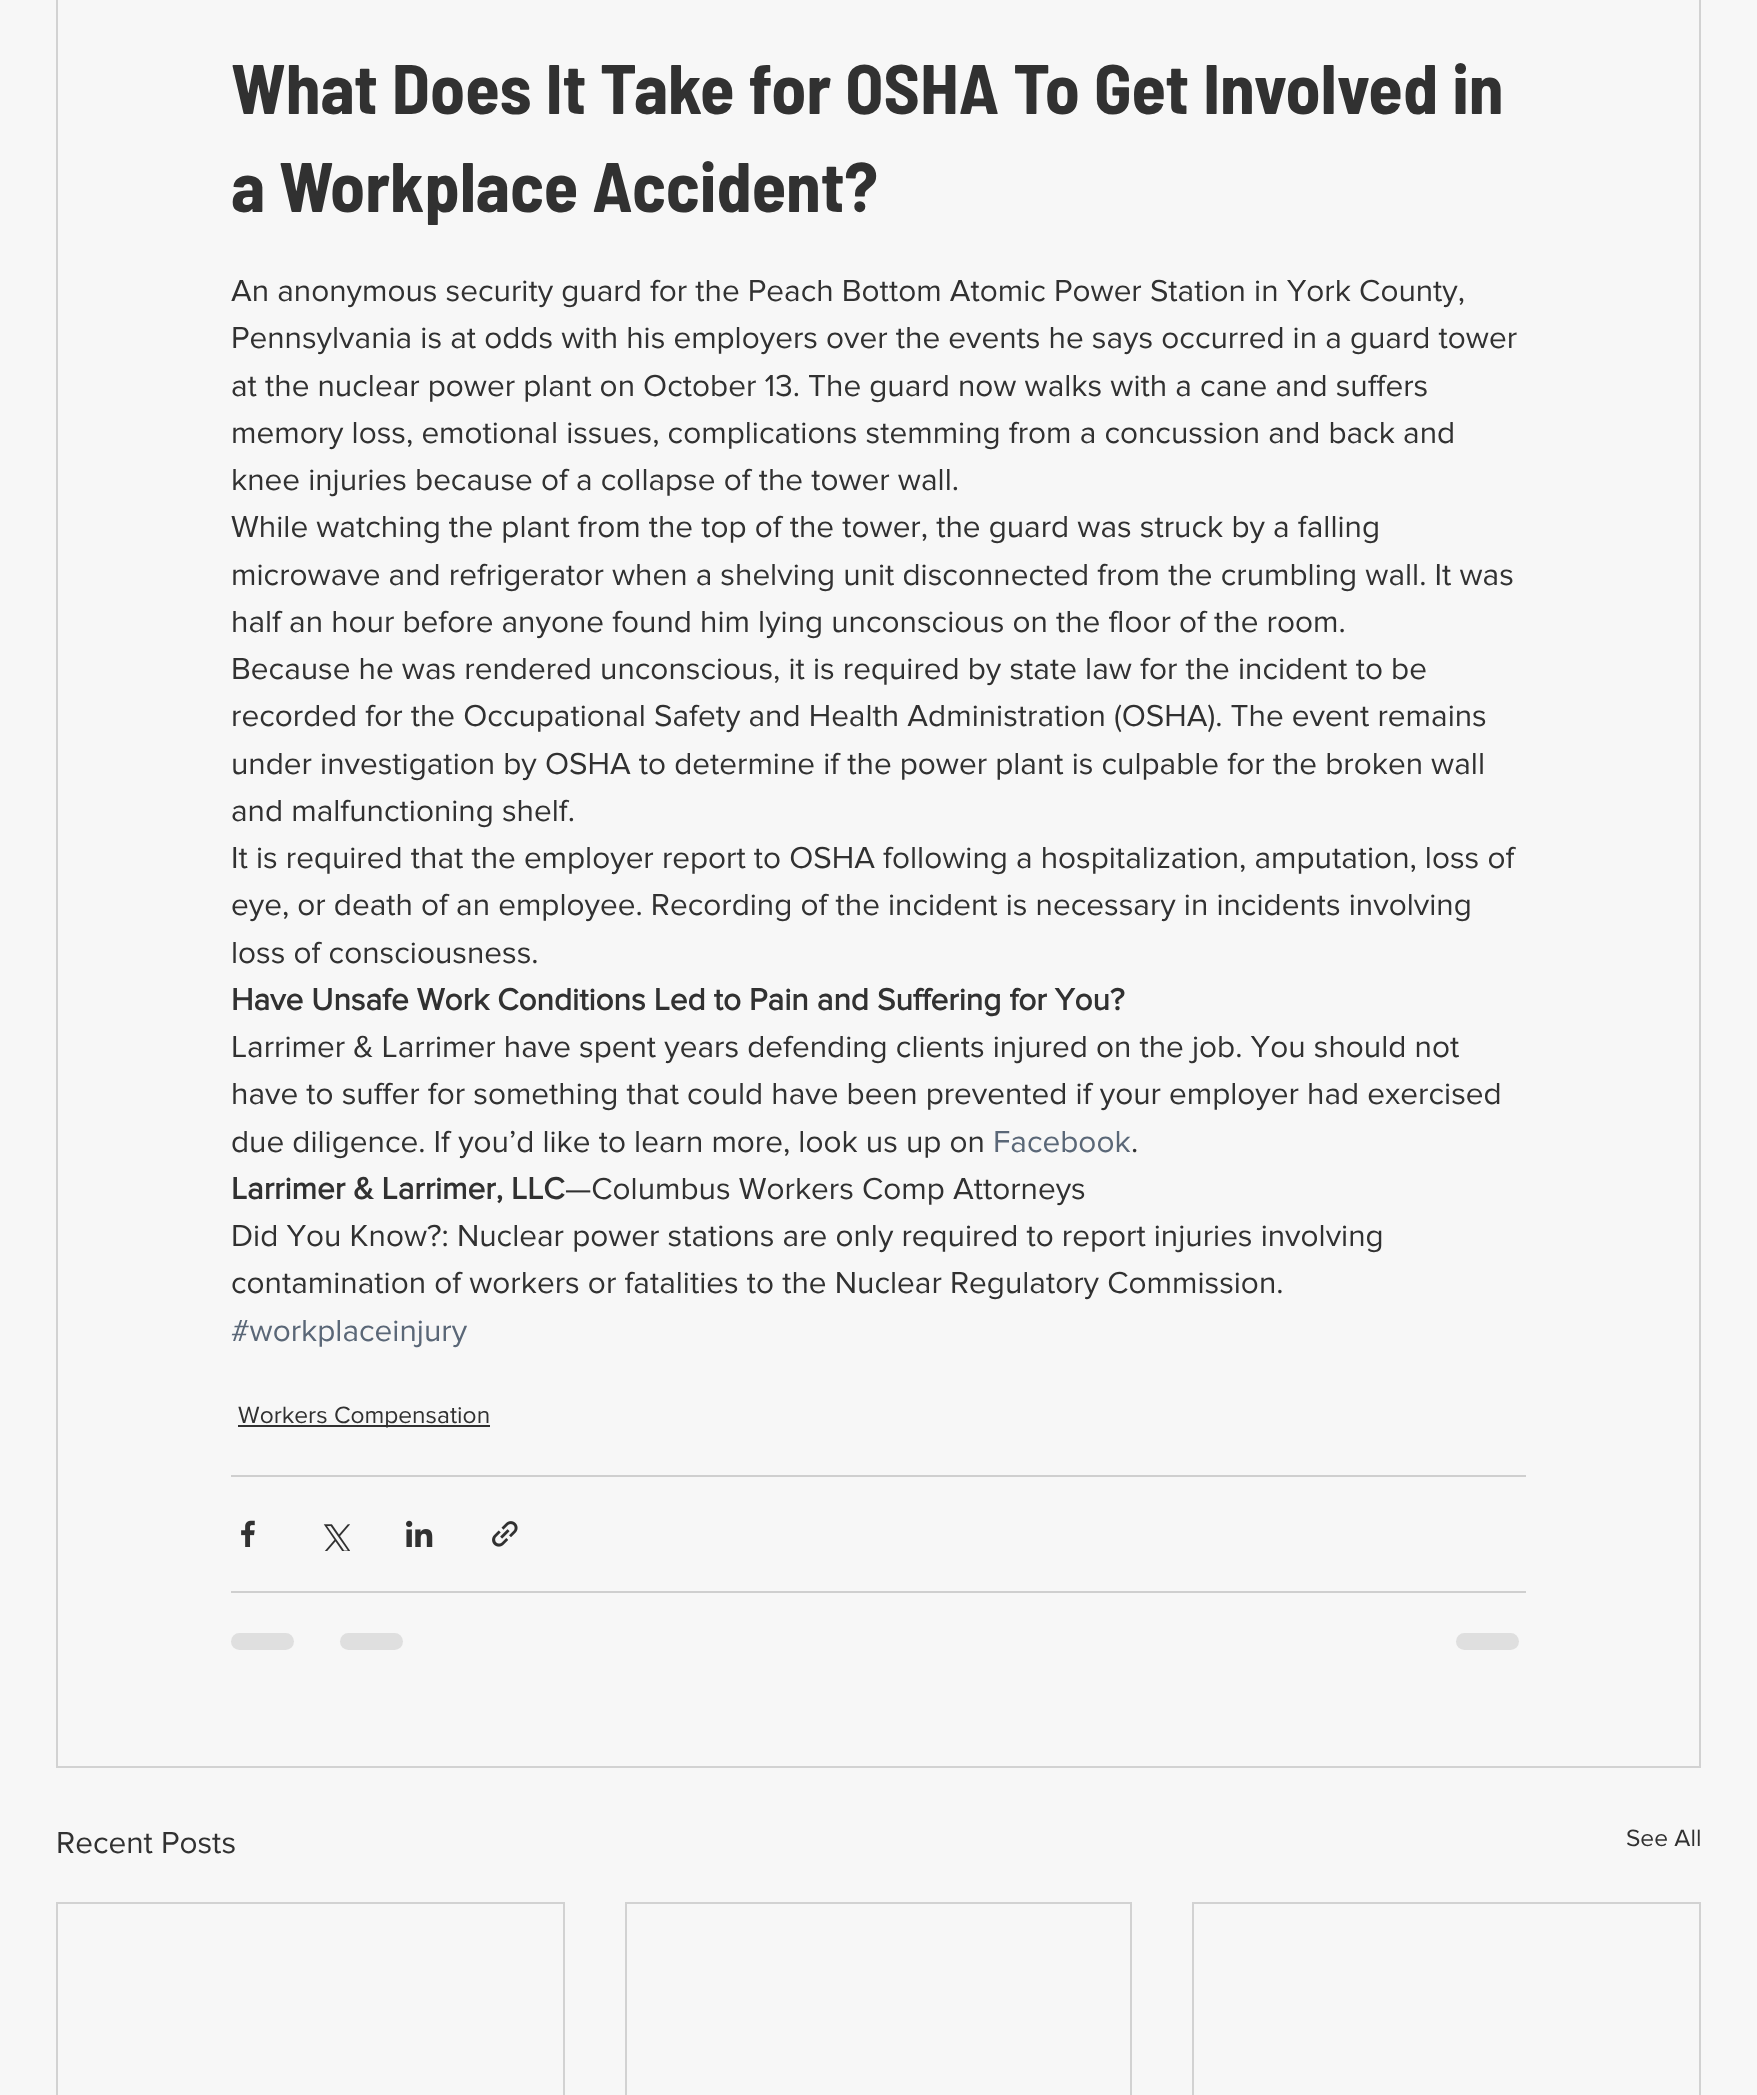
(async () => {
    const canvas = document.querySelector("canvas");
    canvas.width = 1757;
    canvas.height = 2095;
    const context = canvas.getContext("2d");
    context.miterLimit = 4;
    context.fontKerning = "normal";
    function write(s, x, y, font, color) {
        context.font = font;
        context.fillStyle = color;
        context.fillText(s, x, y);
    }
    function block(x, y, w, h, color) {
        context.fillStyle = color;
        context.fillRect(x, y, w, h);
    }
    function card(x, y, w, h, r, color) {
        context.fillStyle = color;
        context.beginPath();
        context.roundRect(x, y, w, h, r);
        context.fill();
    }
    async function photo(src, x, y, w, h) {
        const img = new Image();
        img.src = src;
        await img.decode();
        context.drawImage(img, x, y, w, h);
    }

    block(0, 0, 1757, 2095, "rgb(247, 247, 247)");
    context.strokeStyle = "rgb(210, 210, 210)";
    context.lineWidth = 2;
    context.strokeRect(57, -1, 1643, 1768);
    write("What Does It Take for OSHA To Get Involved in", 231, 114, "bold 70px Barlow Semi Condensed", "rgb(49, 49, 49)");
    write("a Workplace Accident?", 231, 212, "bold 70px Barlow Semi Condensed", "rgb(49, 49, 49)");
    write("An anonymous security guard for the Peach Bottom Atomic Power Station in York County,", 231, 301, "31.5px 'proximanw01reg'", "rgb(49, 49, 49)");
    write("Pennsylvania is at odds with his employers over the events he says occurred in a guard tower", 231, 348, "31.5px 'proximanw01reg'", "rgb(49, 49, 49)");
    write("at the nuclear power plant on October 13. The guard now walks with a cane and suffers", 231, 396, "31.5px 'proximanw01reg'", "rgb(49, 49, 49)");
    write("memory loss, emotional issues, complications stemming from a concussion and back and", 231, 443, "31.5px 'proximanw01reg'", "rgb(49, 49, 49)");
    write("knee injuries because of a collapse of the tower wall.", 231, 490, "31.5px 'proximanw01reg'", "rgb(49, 49, 49)");
    write("While watching the plant from the top of the tower, the guard was struck by a falling", 231, 537, "31.5px 'proximanw01reg'", "rgb(49, 49, 49)");
    write("microwave and refrigerator when a shelving unit disconnected from the crumbling wall. It was", 231, 585, "31.5px 'proximanw01reg'", "rgb(49, 49, 49)");
    write("half an hour before anyone found him lying unconscious on the floor of the room.", 231, 632, "31.5px 'proximanw01reg'", "rgb(49, 49, 49)");
    write("Because he was rendered unconscious, it is required by state law for the incident to be", 231, 679, "31.5px 'proximanw01reg'", "rgb(49, 49, 49)");
    write("recorded for the Occupational Safety and Health Administration (OSHA). The event remains", 231, 726, "31.5px 'proximanw01reg'", "rgb(49, 49, 49)");
    write("under investigation by OSHA to determine if the power plant is culpable for the broken wall", 231, 774, "31.5px 'proximanw01reg'", "rgb(49, 49, 49)");
    write("and malfunctioning shelf.", 231, 821, "31.5px 'proximanw01reg'", "rgb(49, 49, 49)");
    write("It is required that the employer report to OSHA following a hospitalization, amputation, loss of", 231, 868, "31.5px 'proximanw01reg'", "rgb(49, 49, 49)");
    write("eye, or death of an employee. Recording of the incident is necessary in incidents involving", 231, 915, "31.5px 'proximanw01reg'", "rgb(49, 49, 49)");
    write("loss of consciousness.", 231, 963, "31.5px 'proximanw01reg'", "rgb(49, 49, 49)");
    write("Have Unsafe Work Conditions Led to Pain and Suffering for You?", 231, 1010, "bold 31.5px 'proximanw01reg'", "rgb(49, 49, 49)");
    write("Larrimer & Larrimer have spent years defending clients injured on the job. You should not", 231, 1057, "31.5px 'proximanw01reg'", "rgb(49, 49, 49)");
    write("have to suffer for something that could have been prevented if your employer had exercised", 231, 1104, "31.5px 'proximanw01reg'", "rgb(49, 49, 49)");
    write("due diligence. If you’d like to learn more, look us up on", 231, 1152, "31.5px 'proximanw01reg'", "rgb(49, 49, 49)");
    write("Facebook", 993, 1152, "31.5px 'proximanw01reg'", "rgb(90, 103, 119)");
    write(".", 1131, 1152, "31.5px 'proximanw01reg'", "rgb(49, 49, 49)");
    write("Larrimer & Larrimer, LLC", 231, 1199, "bold 31.5px 'proximanw01reg'", "rgb(49, 49, 49)");
    write("—Columbus Workers Comp Attorneys", 565, 1199, "31.5px 'proximanw01reg'", "rgb(49, 49, 49)");
    write("Did You Know?: Nuclear power stations are only required to report injuries involving", 231, 1246, "31.5px 'proximanw01reg'", "rgb(49, 49, 49)");
    write("contamination of workers or fatalities to the Nuclear Regulatory Commission.", 231, 1293, "31.5px 'proximanw01reg'", "rgb(49, 49, 49)");
    write("#workplaceinjury", 231, 1341, "31.5px 'proximanw01reg'", "rgb(90, 103, 119)");
    block(238, 1425, 252, 2, "rgb(49, 49, 49)");
    write("Workers Compensation", 238, 1423, "24.5px 'proximanw01reg'", "rgb(49, 49, 49)");
    block(231, 1475, 1295, 2, "rgb(207, 207, 207)");
    await photo("media/1.png", 241, 1520, 14, 27);
    await photo("media/2.png", 323, 1524, 27, 27);
    await photo("media/3.png", 406, 1520, 27, 27);
    await photo("media/4.png", 492, 1521, 26, 26);
    block(231, 1591, 1295, 2, "rgb(207, 207, 207)");
    card(231, 1633, 63, 17, 8.5, "rgb(223, 223, 223)");
    card(340, 1633, 63, 17, 8.5, "rgb(223, 223, 223)");
    card(1456, 1633, 63, 17, 8.5, "rgb(223, 223, 223)");
    write("Recent Posts", 56, 1853, "31.5px 'proximanw01reg'", "rgb(49, 49, 49)");
    write("See All", 1626, 1846, "24.5px 'proximanw01reg'", "rgb(49, 49, 49)");
    context.strokeRect(57, 1903, 507, 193);
    context.strokeRect(626, 1903, 505, 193);
    context.strokeRect(1193, 1903, 507, 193);
})();
